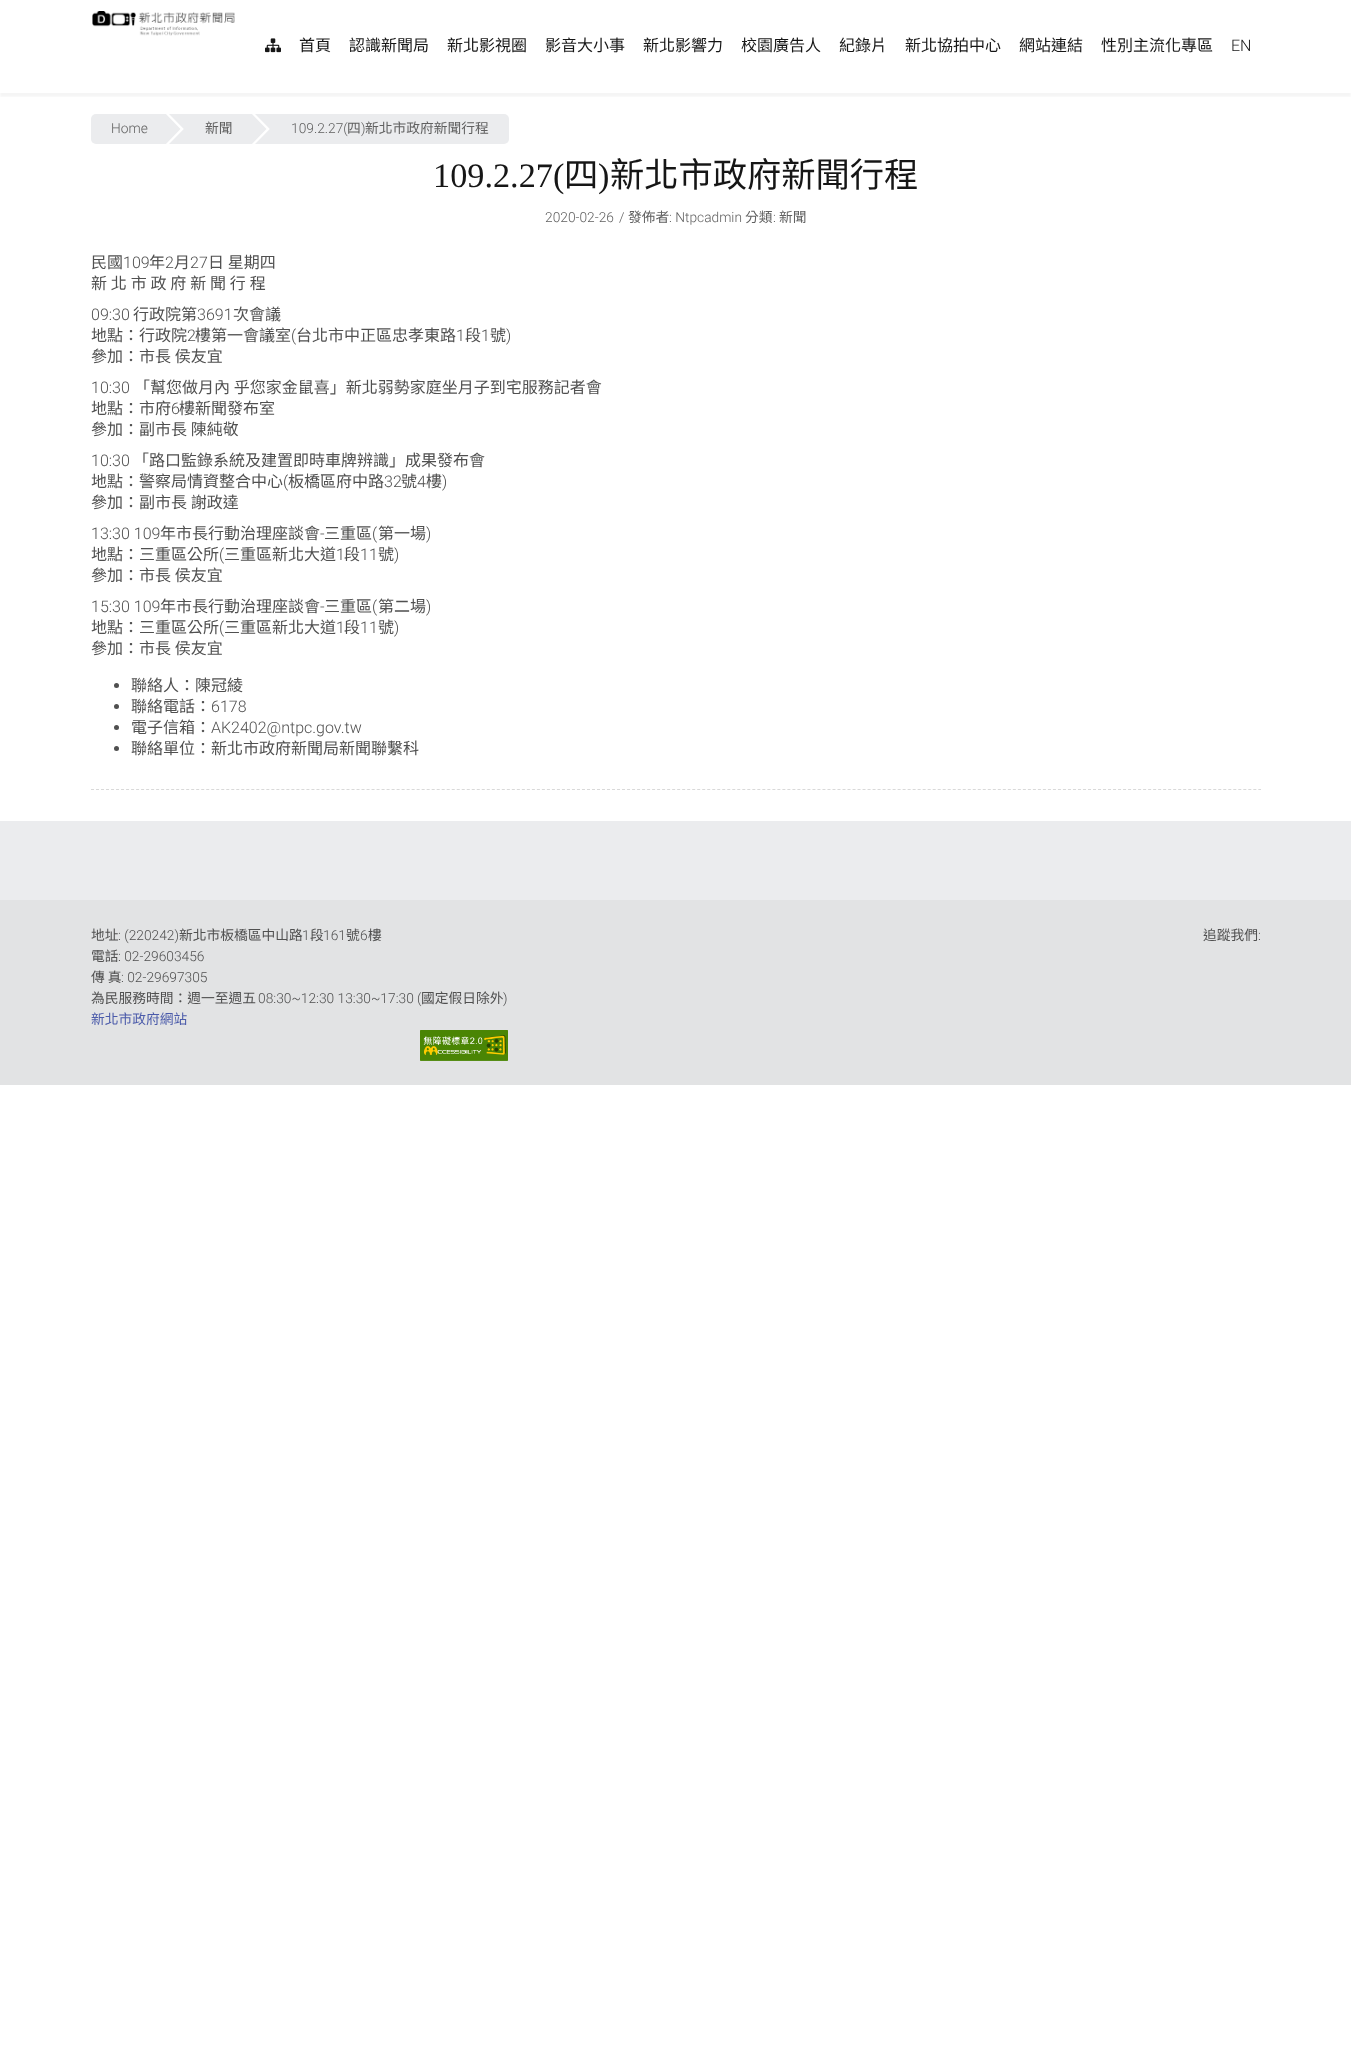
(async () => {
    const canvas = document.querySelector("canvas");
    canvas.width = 1351;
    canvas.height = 2054;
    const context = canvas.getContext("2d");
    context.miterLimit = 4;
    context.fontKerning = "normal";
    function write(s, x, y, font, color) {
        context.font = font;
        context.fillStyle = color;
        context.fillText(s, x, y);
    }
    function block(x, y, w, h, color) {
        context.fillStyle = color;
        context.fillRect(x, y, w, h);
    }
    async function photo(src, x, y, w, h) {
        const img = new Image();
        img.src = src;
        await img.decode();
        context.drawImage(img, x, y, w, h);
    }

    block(0, 0, 1351, 2054, "rgb(255, 255, 255)");
    await photo("media/1.png", 92, 11, 143, 25);
    await photo("media/2.png", 265, 38, 16, 15);
    write("首頁", 299, 51, "16px Noto Sans CJK TC", "rgb(22, 22, 22)");
    write("認識新聞局", 349, 51, "16px Noto Sans CJK TC", "rgb(22, 22, 22)");
    write("新北影視圈", 447, 51, "16px Noto Sans CJK TC", "rgb(22, 22, 22)");
    write("影音大小事", 545, 51, "16px Noto Sans CJK TC", "rgb(22, 22, 22)");
    write("新北影響力", 643, 51, "16px Noto Sans CJK TC", "rgb(22, 22, 22)");
    write("校園廣告人", 741, 51, "16px Noto Sans CJK TC", "rgb(22, 22, 22)");
    write("紀錄片", 839, 51, "16px Noto Sans CJK TC", "rgb(22, 22, 22)");
    write("新北協拍中心", 905, 51, "16px Noto Sans CJK TC", "rgb(22, 22, 22)");
    write("網站連結", 1019, 51, "16px Noto Sans CJK TC", "rgb(22, 22, 22)");
    write("性別主流化專區", 1101, 51, "16px Noto Sans CJK TC", "rgb(22, 22, 22)");
    write("EN", 1231, 51, "300 16px Roboto", "rgb(22, 22, 22)");
    context.save();
    context.beginPath();
    context.rect(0, 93, 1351, 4);
    context.clip();
    context.fillStyle = "rgba(0, 0, 0, 0.04)";
    context.filter = "blur(1.5px)";
    context.beginPath();
    context.rect(0, 89, 1351, 8);
    context.fill();
    context.filter = "none";
    context.restore();
    context.fillStyle = "rgb(235, 236, 238)";
    context.beginPath();
    context.roundRect(91, 114, 94, 30, [5, 0, 0, 5]);
    context.fill();
    write("Home", 111, 133, "300 13.75px Roboto", "rgb(97, 97, 97)");
    await photo("media/3.png", 166, 114, 18, 30);
    block(185, 114, 86, 30, "rgb(235, 236, 238)");
    write("新聞", 205, 133, "13.75px Noto Sans CJK TC", "rgb(97, 97, 97)");
    await photo("media/3.png", 252, 114, 18, 30);
    context.fillStyle = "rgb(235, 236, 238)";
    context.beginPath();
    context.roundRect(271, 114, 238, 30, [0, 5, 5, 0]);
    context.fill();
    write("109.2.27(", 291, 133, "300 13.75px Roboto", "rgb(97, 97, 97)");
    write("四", 347, 133, "13.75px Noto Sans CJK TC", "rgb(97, 97, 97)");
    write(")", 361, 133, "300 13.75px Roboto", "rgb(97, 97, 97)");
    write("新北市政府新聞行程", 365, 133, "13.75px Noto Sans CJK TC", "rgb(97, 97, 97)");
    context.beginPath();
    context.moveTo(91, 789.5);
    context.lineTo(1261, 789.5);
    context.strokeStyle = "rgb(217, 217, 217)";
    context.setLineDash([3, 2.01]);
    context.stroke();
    write("109.2.27(", 433, 187, "34.25px Liberation Serif", "rgb(22, 22, 22)");
    write("四", 564, 187, "34.25px Noto Sans CJK TC", "rgb(22, 22, 22)");
    write(")", 598, 187, "34.25px Liberation Serif", "rgb(22, 22, 22)");
    write("新北市政府新聞行程", 610, 187, "34.25px Noto Sans CJK TC", "rgb(22, 22, 22)");
    write("2020-02-26", 545, 222, "300 13.75px Roboto", "rgb(97, 97, 97)");
    write("/", 619, 222, "300 13.75px Roboto", "rgb(97, 97, 97)");
    write("發佈者", 628, 222, "13.75px Noto Sans CJK TC", "rgb(97, 97, 97)");
    write(": Ntpcadmin", 669, 222, "300 13.75px Roboto", "rgb(97, 97, 97)");
    write("分類", 745, 222, "13.75px Noto Sans CJK TC", "rgb(97, 97, 97)");
    write(":", 773, 222, "300 13.75px Roboto", "rgb(97, 97, 97)");
    write("新聞", 779, 222, "13.75px Noto Sans CJK TC", "rgb(97, 97, 97)");
    write("民國", 91, 268, "16px Noto Sans CJK TC", "rgb(80, 80, 80)");
    write("109", 123, 268, "300 16px Roboto", "rgb(80, 80, 80)");
    write("年", 149, 268, "16px Noto Sans CJK TC", "rgb(80, 80, 80)");
    write("2", 165, 268, "300 16px Roboto", "rgb(80, 80, 80)");
    write("月", 174, 268, "16px Noto Sans CJK TC", "rgb(80, 80, 80)");
    write("27", 190, 268, "300 16px Roboto", "rgb(80, 80, 80)");
    context.wordSpacing = "0.25px";
    write("日 星期四", 208, 268, "16px Noto Sans CJK TC", "rgb(80, 80, 80)");
    write("新 北 市 政 府 新 聞 行 程", 91, 289, "16px Noto Sans CJK TC", "rgb(80, 80, 80)");
    context.wordSpacing = "0px";
    write("09:30", 91, 320, "300 16px Roboto", "rgb(80, 80, 80)");
    write("行政院第", 133, 320, "16px Noto Sans CJK TC", "rgb(80, 80, 80)");
    write("3691", 197, 320, "300 16px Roboto", "rgb(80, 80, 80)");
    write("次會議", 233, 320, "16px Noto Sans CJK TC", "rgb(80, 80, 80)");
    write("地點：行政院", 91, 341, "16px Noto Sans CJK TC", "rgb(80, 80, 80)");
    write("2", 187, 341, "300 16px Roboto", "rgb(80, 80, 80)");
    write("樓第一會議室", 195, 341, "16px Noto Sans CJK TC", "rgb(80, 80, 80)");
    write("(", 291, 341, "300 16px Roboto", "rgb(80, 80, 80)");
    write("台北市中正區忠孝東路", 296, 341, "16px Noto Sans CJK TC", "rgb(80, 80, 80)");
    write("1", 456, 341, "300 16px Roboto", "rgb(80, 80, 80)");
    write("段", 465, 341, "16px Noto Sans CJK TC", "rgb(80, 80, 80)");
    write("1", 481, 341, "300 16px Roboto", "rgb(80, 80, 80)");
    write("號", 490, 341, "16px Noto Sans CJK TC", "rgb(80, 80, 80)");
    write(")", 506, 341, "300 16px Roboto", "rgb(80, 80, 80)");
    context.wordSpacing = "0.25px";
    write("參加：市長 侯友宜", 91, 362, "16px Noto Sans CJK TC", "rgb(80, 80, 80)");
    context.wordSpacing = "0px";
    write("10:30", 91, 393, "300 16px Roboto", "rgb(80, 80, 80)");
    context.wordSpacing = "0.25px";
    write("「幫您做月內 乎您家金鼠喜」新北弱勢家庭坐月子到宅服務記者會", 134, 393, "16px Noto Sans CJK TC", "rgb(80, 80, 80)");
    context.wordSpacing = "0px";
    write("地點：市府", 91, 414, "16px Noto Sans CJK TC", "rgb(80, 80, 80)");
    write("6", 171, 414, "300 16px Roboto", "rgb(80, 80, 80)");
    write("樓新聞發布室", 179, 414, "16px Noto Sans CJK TC", "rgb(80, 80, 80)");
    context.wordSpacing = "0.25px";
    write("參加：副市長 陳純敬", 91, 435, "16px Noto Sans CJK TC", "rgb(80, 80, 80)");
    context.wordSpacing = "0px";
    write("10:30", 91, 466, "300 16px Roboto", "rgb(80, 80, 80)");
    write("「路口監錄系統及建置即時車牌辨識」成果發布會", 133, 466, "16px Noto Sans CJK TC", "rgb(80, 80, 80)");
    write("地點：警察局情資整合中心", 91, 487, "16px Noto Sans CJK TC", "rgb(80, 80, 80)");
    write("(", 283, 487, "300 16px Roboto", "rgb(80, 80, 80)");
    write("板橋區府中路", 288, 487, "16px Noto Sans CJK TC", "rgb(80, 80, 80)");
    write("32", 384, 487, "300 16px Roboto", "rgb(80, 80, 80)");
    write("號", 401, 487, "16px Noto Sans CJK TC", "rgb(80, 80, 80)");
    write("4", 417, 487, "300 16px Roboto", "rgb(80, 80, 80)");
    write("樓", 426, 487, "16px Noto Sans CJK TC", "rgb(80, 80, 80)");
    write(")", 442, 487, "300 16px Roboto", "rgb(80, 80, 80)");
    context.wordSpacing = "0.25px";
    write("參加：副市長 謝政達", 91, 508, "16px Noto Sans CJK TC", "rgb(80, 80, 80)");
    context.wordSpacing = "0px";
    write("13:30 109", 91, 539, "300 16px Roboto", "rgb(80, 80, 80)");
    write("年市長行動治理座談會", 160, 539, "16px Noto Sans CJK TC", "rgb(80, 80, 80)");
    write("-", 320, 539, "300 16px Roboto", "rgb(80, 80, 80)");
    write("三重區", 324, 539, "16px Noto Sans CJK TC", "rgb(80, 80, 80)");
    write("(", 372, 539, "300 16px Roboto", "rgb(80, 80, 80)");
    write("第一場", 378, 539, "16px Noto Sans CJK TC", "rgb(80, 80, 80)");
    write(")", 426, 539, "300 16px Roboto", "rgb(80, 80, 80)");
    write("地點：三重區公所", 91, 560, "16px Noto Sans CJK TC", "rgb(80, 80, 80)");
    write("(", 219, 560, "300 16px Roboto", "rgb(80, 80, 80)");
    write("三重區新北大道", 224, 560, "16px Noto Sans CJK TC", "rgb(80, 80, 80)");
    write("1", 336, 560, "300 16px Roboto", "rgb(80, 80, 80)");
    write("段", 344, 560, "16px Noto Sans CJK TC", "rgb(80, 80, 80)");
    write("11", 360, 560, "300 16px Roboto", "rgb(80, 80, 80)");
    write("號", 378, 560, "16px Noto Sans CJK TC", "rgb(80, 80, 80)");
    write(")", 394, 560, "300 16px Roboto", "rgb(80, 80, 80)");
    context.wordSpacing = "0.25px";
    write("參加：市長 侯友宜", 91, 581, "16px Noto Sans CJK TC", "rgb(80, 80, 80)");
    context.wordSpacing = "0px";
    write("15:30 109", 91, 612, "300 16px Roboto", "rgb(80, 80, 80)");
    write("年市長行動治理座談會", 160, 612, "16px Noto Sans CJK TC", "rgb(80, 80, 80)");
    write("-", 320, 612, "300 16px Roboto", "rgb(80, 80, 80)");
    write("三重區", 324, 612, "16px Noto Sans CJK TC", "rgb(80, 80, 80)");
    write("(", 372, 612, "300 16px Roboto", "rgb(80, 80, 80)");
    write("第二場", 378, 612, "16px Noto Sans CJK TC", "rgb(80, 80, 80)");
    write(")", 426, 612, "300 16px Roboto", "rgb(80, 80, 80)");
    write("地點：三重區公所", 91, 633, "16px Noto Sans CJK TC", "rgb(80, 80, 80)");
    write("(", 219, 633, "300 16px Roboto", "rgb(80, 80, 80)");
    write("三重區新北大道", 224, 633, "16px Noto Sans CJK TC", "rgb(80, 80, 80)");
    write("1", 336, 633, "300 16px Roboto", "rgb(80, 80, 80)");
    write("段", 344, 633, "16px Noto Sans CJK TC", "rgb(80, 80, 80)");
    write("11", 360, 633, "300 16px Roboto", "rgb(80, 80, 80)");
    write("號", 378, 633, "16px Noto Sans CJK TC", "rgb(80, 80, 80)");
    write(")", 394, 633, "300 16px Roboto", "rgb(80, 80, 80)");
    context.wordSpacing = "0.25px";
    write("參加：市長 侯友宜", 91, 654, "16px Noto Sans CJK TC", "rgb(80, 80, 80)");
    context.beginPath();
    context.arc(116.5, 685.5, 2.5, 0, Math.PI * 2);
    context.fill();
    context.wordSpacing = "0px";
    write("聯絡人：陳冠綾", 131, 691, "16px Noto Sans CJK TC", "rgb(80, 80, 80)");
    context.beginPath();
    context.arc(116.5, 706.5, 2.5, 0, Math.PI * 2);
    context.fill();
    write("聯絡電話：", 131, 712, "16px Noto Sans CJK TC", "rgb(80, 80, 80)");
    write("6178", 211, 712, "300 16px Roboto", "rgb(80, 80, 80)");
    context.beginPath();
    context.arc(116.5, 727.5, 2.5, 0, Math.PI * 2);
    context.fill();
    write("電子信箱：", 131, 733, "16px Noto Sans CJK TC", "rgb(80, 80, 80)");
    write("AK2402@ntpc.gov.tw", 211, 733, "300 16px Roboto", "rgb(80, 80, 80)");
    context.beginPath();
    context.arc(116.5, 748.5, 2.5, 0, Math.PI * 2);
    context.fill();
    write("聯絡單位：新北市政府新聞局新聞聯繫科", 131, 754, "16px Noto Sans CJK TC", "rgb(80, 80, 80)");
    block(0, 900, 1351, 185, "rgb(226, 227, 228)");
    block(0, 821, 1351, 79, "rgb(235, 236, 238)");
    write("地址", 91, 940, "13.75px Noto Sans CJK TC", "rgb(80, 80, 80)");
    write(": (220242)", 118, 940, "300 13.75px Roboto", "rgb(80, 80, 80)");
    write("新北市板橋區中山路", 179, 940, "13.75px Noto Sans CJK TC", "rgb(80, 80, 80)");
    write("1", 302, 940, "300 13.75px Roboto", "rgb(80, 80, 80)");
    write("段", 310, 940, "13.75px Noto Sans CJK TC", "rgb(80, 80, 80)");
    write("161", 323, 940, "300 13.75px Roboto", "rgb(80, 80, 80)");
    write("號", 346, 940, "13.75px Noto Sans CJK TC", "rgb(80, 80, 80)");
    write("6", 360, 940, "300 13.75px Roboto", "rgb(80, 80, 80)");
    write("樓", 368, 940, "13.75px Noto Sans CJK TC", "rgb(80, 80, 80)");
    write("電話", 91, 961, "13.75px Noto Sans CJK TC", "rgb(80, 80, 80)");
    write(": 02-29603456", 118, 961, "300 13.75px Roboto", "rgb(80, 80, 80)");
    write("傳 真", 91, 982, "13.75px Noto Sans CJK TC", "rgb(80, 80, 80)");
    write(": 02-29697305", 121, 982, "300 13.75px Roboto", "rgb(80, 80, 80)");
    write("為民服務時間：週一至週五", 91, 1003, "13.75px Noto Sans CJK TC", "rgb(80, 80, 80)");
    write("08:30~12:30 13:30~17:30 (", 258, 1003, "300 13.75px Roboto", "rgb(80, 80, 80)");
    write("國定假日除外", 421, 1003, "13.75px Noto Sans CJK TC", "rgb(80, 80, 80)");
    write(")", 503, 1003, "300 13.75px Roboto", "rgb(80, 80, 80)");
    write("新北市政府網站", 91, 1024, "13.75px Noto Sans CJK TC", "rgb(75, 91, 170)");
    await photo("media/4.png", 420, 1030, 88, 31);
    write("追蹤我們", 1203, 940, "13.75px Noto Sans CJK TC", "rgb(80, 80, 80)");
    write(":", 1258, 940, "300 13.75px Roboto", "rgb(80, 80, 80)");
})();
